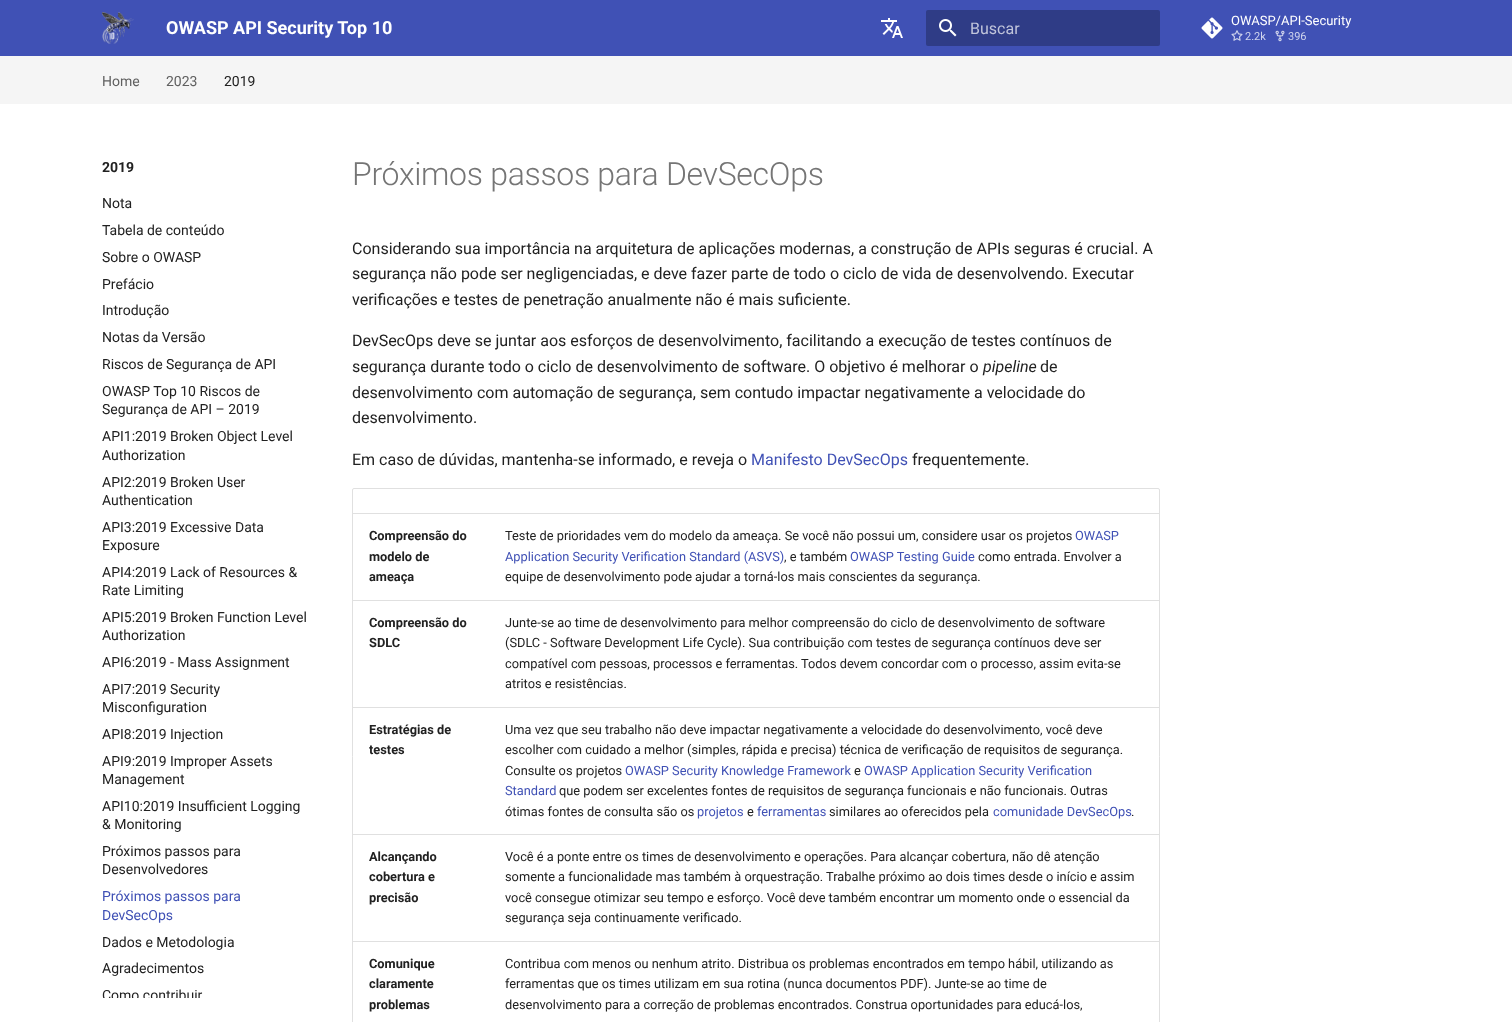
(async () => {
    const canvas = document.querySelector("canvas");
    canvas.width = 1512;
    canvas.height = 1022;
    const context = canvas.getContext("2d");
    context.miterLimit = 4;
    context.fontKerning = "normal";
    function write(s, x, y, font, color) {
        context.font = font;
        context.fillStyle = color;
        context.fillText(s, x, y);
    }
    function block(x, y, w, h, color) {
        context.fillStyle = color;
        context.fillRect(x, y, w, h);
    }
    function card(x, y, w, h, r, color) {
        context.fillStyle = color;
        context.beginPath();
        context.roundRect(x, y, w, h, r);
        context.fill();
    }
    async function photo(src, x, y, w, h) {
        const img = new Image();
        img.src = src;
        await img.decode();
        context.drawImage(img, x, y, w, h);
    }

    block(0, 0, 1512, 1022, "rgb(255, 255, 255)");
    block(0, 0, 1512, 56, "rgb(64, 81, 181)");
    await photo("media/1.png", 102, 12, 32, 32);
    write("OWASP API Security Top 10", 166, 34, "bold 18px Roboto", "rgb(255, 255, 255)");
    await photo("media/2.png", 881, 18, 22, 20);
    card(926, 10, 234, 36, 2, "rgb(47, 60, 134)");
    await photo("media/3.png", 939, 19, 18, 18);
    write("Buscar", 970, 34, "16px Roboto", "rgb(193, 197, 219)");
    await photo("media/4.png", 1201, 17, 22, 22);
    write("OWASP/API-Security", 1231, 25, "13px Roboto", "rgb(255, 255, 255)");
    await photo("media/5.png", 1231, 30, 12, 11);
    write("2.2k", 1245, 40, "11px Roboto", "rgb(207, 212, 237)");
    await photo("media/6.png", 1275, 30, 10, 12);
    write("396", 1288, 40, "11px Roboto", "rgb(207, 212, 237)");
    block(0, 56, 1512, 48, "rgb(245, 245, 245)");
    write("Home", 102, 86, "14px Roboto", "rgb(96, 96, 96)");
    write("2023", 166, 86, "14px Roboto", "rgb(96, 96, 96)");
    write("2019", 224, 86, "14px Roboto", "rgb(33, 33, 33)");
    write("2019", 102, 172, "bold 14px Roboto", "rgb(33, 33, 33)");
    write("Nota", 102, 208, "14px Roboto", "rgb(33, 33, 33)");
    write("Tabela de conteúdo", 102, 235, "14px Roboto", "rgb(33, 33, 33)");
    write("Sobre o OWASP", 102, 262, "14px Roboto", "rgb(33, 33, 33)");
    write("Prefácio", 102, 289, "14px Roboto", "rgb(33, 33, 33)");
    write("Introdução", 102, 315, "14px Roboto", "rgb(33, 33, 33)");
    write("Notas da Versão", 102, 342, "14px Roboto", "rgb(33, 33, 33)");
    write("Riscos de Segurança de API", 102, 369, "14px Roboto", "rgb(33, 33, 33)");
    write("OWASP Top 10 Riscos de", 102, 396, "14px Roboto", "rgb(33, 33, 33)");
    write("Segurança de API – 2019", 102, 414, "14px Roboto", "rgb(33, 33, 33)");
    write("API1:2019 Broken Object Level", 102, 441, "14px Roboto", "rgb(33, 33, 33)");
    write("Authorization", 102, 460, "14px Roboto", "rgb(33, 33, 33)");
    write("API2:2019 Broken User", 102, 487, "14px Roboto", "rgb(33, 33, 33)");
    write("Authentication", 102, 505, "14px Roboto", "rgb(33, 33, 33)");
    write("API3:2019 Excessive Data", 102, 532, "14px Roboto", "rgb(33, 33, 33)");
    write("Exposure", 102, 550, "14px Roboto", "rgb(33, 33, 33)");
    write("API4:2019 Lack of Resources &", 102, 577, "14px Roboto", "rgb(33, 33, 33)");
    write("Rate Limiting", 102, 595, "14px Roboto", "rgb(33, 33, 33)");
    write("API5:2019 Broken Function Level", 102, 622, "14px Roboto", "rgb(33, 33, 33)");
    write("Authorization", 102, 640, "14px Roboto", "rgb(33, 33, 33)");
    write("API6:2019 - Mass Assignment", 102, 667, "14px Roboto", "rgb(33, 33, 33)");
    write("API7:2019 Security", 102, 694, "14px Roboto", "rgb(33, 33, 33)");
    write("Misconfiguration", 102, 712, "14px Roboto", "rgb(33, 33, 33)");
    write("API8:2019 Injection", 102, 739, "14px Roboto", "rgb(33, 33, 33)");
    write("API9:2019 Improper Assets", 102, 766, "14px Roboto", "rgb(33, 33, 33)");
    write("Management", 102, 784, "14px Roboto", "rgb(33, 33, 33)");
    write("API10:2019 Insufficient Logging", 102, 811, "14px Roboto", "rgb(33, 33, 33)");
    write("& Monitoring", 102, 829, "14px Roboto", "rgb(33, 33, 33)");
    write("Próximos passos para", 102, 856, "14px Roboto", "rgb(33, 33, 33)");
    write("Desenvolvedores", 102, 874, "14px Roboto", "rgb(33, 33, 33)");
    write("Próximos passos para", 102, 901, "14px Roboto", "rgb(64, 81, 181)");
    write("DevSecOps", 102, 920, "14px Roboto", "rgb(64, 81, 181)");
    write("Dados e Metodologia", 102, 947, "14px Roboto", "rgb(33, 33, 33)");
    write("Agradecimentos", 102, 973, "14px Roboto", "rgb(33, 33, 33)");
    context.save();
    context.beginPath();
    context.rect(102, 986, 206, 12);
    context.clip();
    write("Como contribuir", 102, 1000, "14px Roboto", "rgb(33, 33, 33)");
    context.restore();
    context.letterSpacing = "-0.3px";
    write("Próximos passos para DevSecOps", 352, 185, "300 32px Roboto", "rgb(117, 117, 117)");
    context.letterSpacing = "0px";
    write("Considerando sua importância na arquitetura de aplicações modernas, a construção de APIs seguras é crucial. A", 352, 254, "16px Roboto", "rgb(33, 33, 33)");
    write("segurança não pode ser negligenciadas, e deve fazer parte de todo o ciclo de vida de desenvolvendo. Executar", 352, 279, "16px Roboto", "rgb(33, 33, 33)");
    write("verificações e testes de penetração anualmente não é mais suficiente.", 352, 305, "16px Roboto", "rgb(33, 33, 33)");
    write("DevSecOps deve se juntar aos esforços de desenvolvimento, facilitando a execução de testes contínuos de", 352, 346, "16px Roboto", "rgb(33, 33, 33)");
    write("segurança durante todo o ciclo de desenvolvimento de software. O objetivo é melhorar o", 352, 372, "16px Roboto", "rgb(33, 33, 33)");
    write("pipeline", 983, 372, "italic 16px Roboto", "rgb(33, 33, 33)");
    write("de", 1040, 372, "16px Roboto", "rgb(33, 33, 33)");
    write("desenvolvimento com automação de segurança, sem contudo impactar negativamente a velocidade do", 352, 398, "16px Roboto", "rgb(33, 33, 33)");
    write("desenvolvimento.", 352, 423, "16px Roboto", "rgb(33, 33, 33)");
    write("Em caso de dúvidas, mantenha-se informado, e reveja o", 352, 465, "16px Roboto", "rgb(33, 33, 33)");
    write("Manifesto DevSecOps", 751, 465, "16px Roboto", "rgb(64, 81, 181)");
    write("frequentemente.", 912, 465, "16px Roboto", "rgb(33, 33, 33)");
    context.beginPath();
    context.roundRect(352.5, 488.5, 807, 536, 1.5);
    context.strokeStyle = "rgb(224, 224, 224)";
    context.stroke();
    block(353, 513, 806, 1, "rgb(224, 224, 224)");
    write("Compreensão do", 369, 540, "bold 12.8px Roboto", "rgb(33, 33, 33)");
    write("modelo de", 369, 561, "bold 12.8px Roboto", "rgb(33, 33, 33)");
    write("ameaça", 369, 581, "bold 12.8px Roboto", "rgb(33, 33, 33)");
    write("Teste de prioridades vem do modelo da ameaça. Se você não possui um, considere usar os projetos", 505, 540, "12.8px Roboto", "rgb(33, 33, 33)");
    write("OWASP", 1075, 540, "12.8px Roboto", "rgb(64, 81, 181)");
    write("Application Security Verification Standard (ASVS)", 505, 561, "12.8px Roboto", "rgb(64, 81, 181)");
    write(", e também", 784, 561, "12.8px Roboto", "rgb(33, 33, 33)");
    write("OWASP Testing Guide", 850, 561, "12.8px Roboto", "rgb(64, 81, 181)");
    write("como entrada. Envolver a", 978, 561, "12.8px Roboto", "rgb(33, 33, 33)");
    write("equipe de desenvolvimento pode ajudar a torná-los mais conscientes da segurança.", 505, 581, "12.8px Roboto", "rgb(33, 33, 33)");
    block(353, 600, 806, 1, "rgb(224, 224, 224)");
    write("Compreensão do", 369, 627, "bold 12.8px Roboto", "rgb(33, 33, 33)");
    write("SDLC", 369, 647, "bold 12.8px Roboto", "rgb(33, 33, 33)");
    write("Junte-se ao time de desenvolvimento para melhor compreensão do ciclo de desenvolvimento de software", 505, 627, "12.8px Roboto", "rgb(33, 33, 33)");
    write("(SDLC - Software Development Life Cycle). Sua contribuição com testes de segurança contínuos deve ser", 505, 647, "12.8px Roboto", "rgb(33, 33, 33)");
    write("compatível com pessoas, processos e ferramentas. Todos devem concordar com o processo, assim evita-se", 505, 668, "12.8px Roboto", "rgb(33, 33, 33)");
    write("atritos e resistências.", 505, 688, "12.8px Roboto", "rgb(33, 33, 33)");
    block(353, 707, 806, 1, "rgb(224, 224, 224)");
    write("Estratégias de", 369, 734, "bold 12.8px Roboto", "rgb(33, 33, 33)");
    write("testes", 369, 754, "bold 12.8px Roboto", "rgb(33, 33, 33)");
    write("Uma vez que seu trabalho não deve impactar negativamente a velocidade do desenvolvimento, você deve", 505, 734, "12.8px Roboto", "rgb(33, 33, 33)");
    write("escolher com cuidado a melhor (simples, rápida e precisa) técnica de verificação de requisitos de segurança.", 505, 754, "12.8px Roboto", "rgb(33, 33, 33)");
    write("Consulte os projetos", 505, 775, "12.8px Roboto", "rgb(33, 33, 33)");
    write("OWASP Security Knowledge Framework", 625, 775, "12.8px Roboto", "rgb(64, 81, 181)");
    write("e", 854, 775, "12.8px Roboto", "rgb(33, 33, 33)");
    write("OWASP Application Security Verification", 864, 775, "12.8px Roboto", "rgb(64, 81, 181)");
    write("Standard", 505, 795, "12.8px Roboto", "rgb(64, 81, 181)");
    write("que podem ser excelentes fontes de requisitos de segurança funcionais e não funcionais. Outras", 559, 795, "12.8px Roboto", "rgb(33, 33, 33)");
    write("ótimas fontes de consulta são os", 505, 816, "12.8px Roboto", "rgb(33, 33, 33)");
    write("projetos", 697, 816, "12.8px Roboto", "rgb(64, 81, 181)");
    write("e", 747, 816, "12.8px Roboto", "rgb(33, 33, 33)");
    write("ferramentas", 757, 816, "12.8px Roboto", "rgb(64, 81, 181)");
    write("similares ao oferecidos pela", 829, 816, "12.8px Roboto", "rgb(33, 33, 33)");
    write("comunidade DevSecOps", 993, 816, "12.8px Roboto", "rgb(64, 81, 181)");
    write(".", 1131, 816, "12.8px Roboto", "rgb(33, 33, 33)");
    block(353, 834, 806, 1, "rgb(224, 224, 224)");
    write("Alcançando", 369, 861, "bold 12.8px Roboto", "rgb(33, 33, 33)");
    write("cobertura e", 369, 881, "bold 12.8px Roboto", "rgb(33, 33, 33)");
    write("precisão", 369, 902, "bold 12.8px Roboto", "rgb(33, 33, 33)");
    write("Você é a ponte entre os times de desenvolvimento e operações. Para alcançar cobertura, não dê atenção", 505, 861, "12.8px Roboto", "rgb(33, 33, 33)");
    write("somente a funcionalidade mas também à orquestração. Trabalhe próximo ao dois times desde o início e assim", 505, 881, "12.8px Roboto", "rgb(33, 33, 33)");
    write("você consegue otimizar seu tempo e esforço. Você deve também encontrar um momento onde o essencial da", 505, 902, "12.8px Roboto", "rgb(33, 33, 33)");
    write("segurança seja continuamente verificado.", 505, 922, "12.8px Roboto", "rgb(33, 33, 33)");
    block(353, 941, 806, 1, "rgb(224, 224, 224)");
    write("Comunique", 369, 968, "bold 12.8px Roboto", "rgb(33, 33, 33)");
    write("claramente", 369, 988, "bold 12.8px Roboto", "rgb(33, 33, 33)");
    write("problemas", 369, 1009, "bold 12.8px Roboto", "rgb(33, 33, 33)");
    write("Contribua com menos ou nenhum atrito. Distribua os problemas encontrados em tempo hábil, utilizando as", 505, 968, "12.8px Roboto", "rgb(33, 33, 33)");
    write("ferramentas que os times utilizam em sua rotina (nunca documentos PDF). Junte-se ao time de", 505, 988, "12.8px Roboto", "rgb(33, 33, 33)");
    write("desenvolvimento para a correção de problemas encontrados. Construa oportunidades para educá-los,", 505, 1009, "12.8px Roboto", "rgb(33, 33, 33)");
})();
